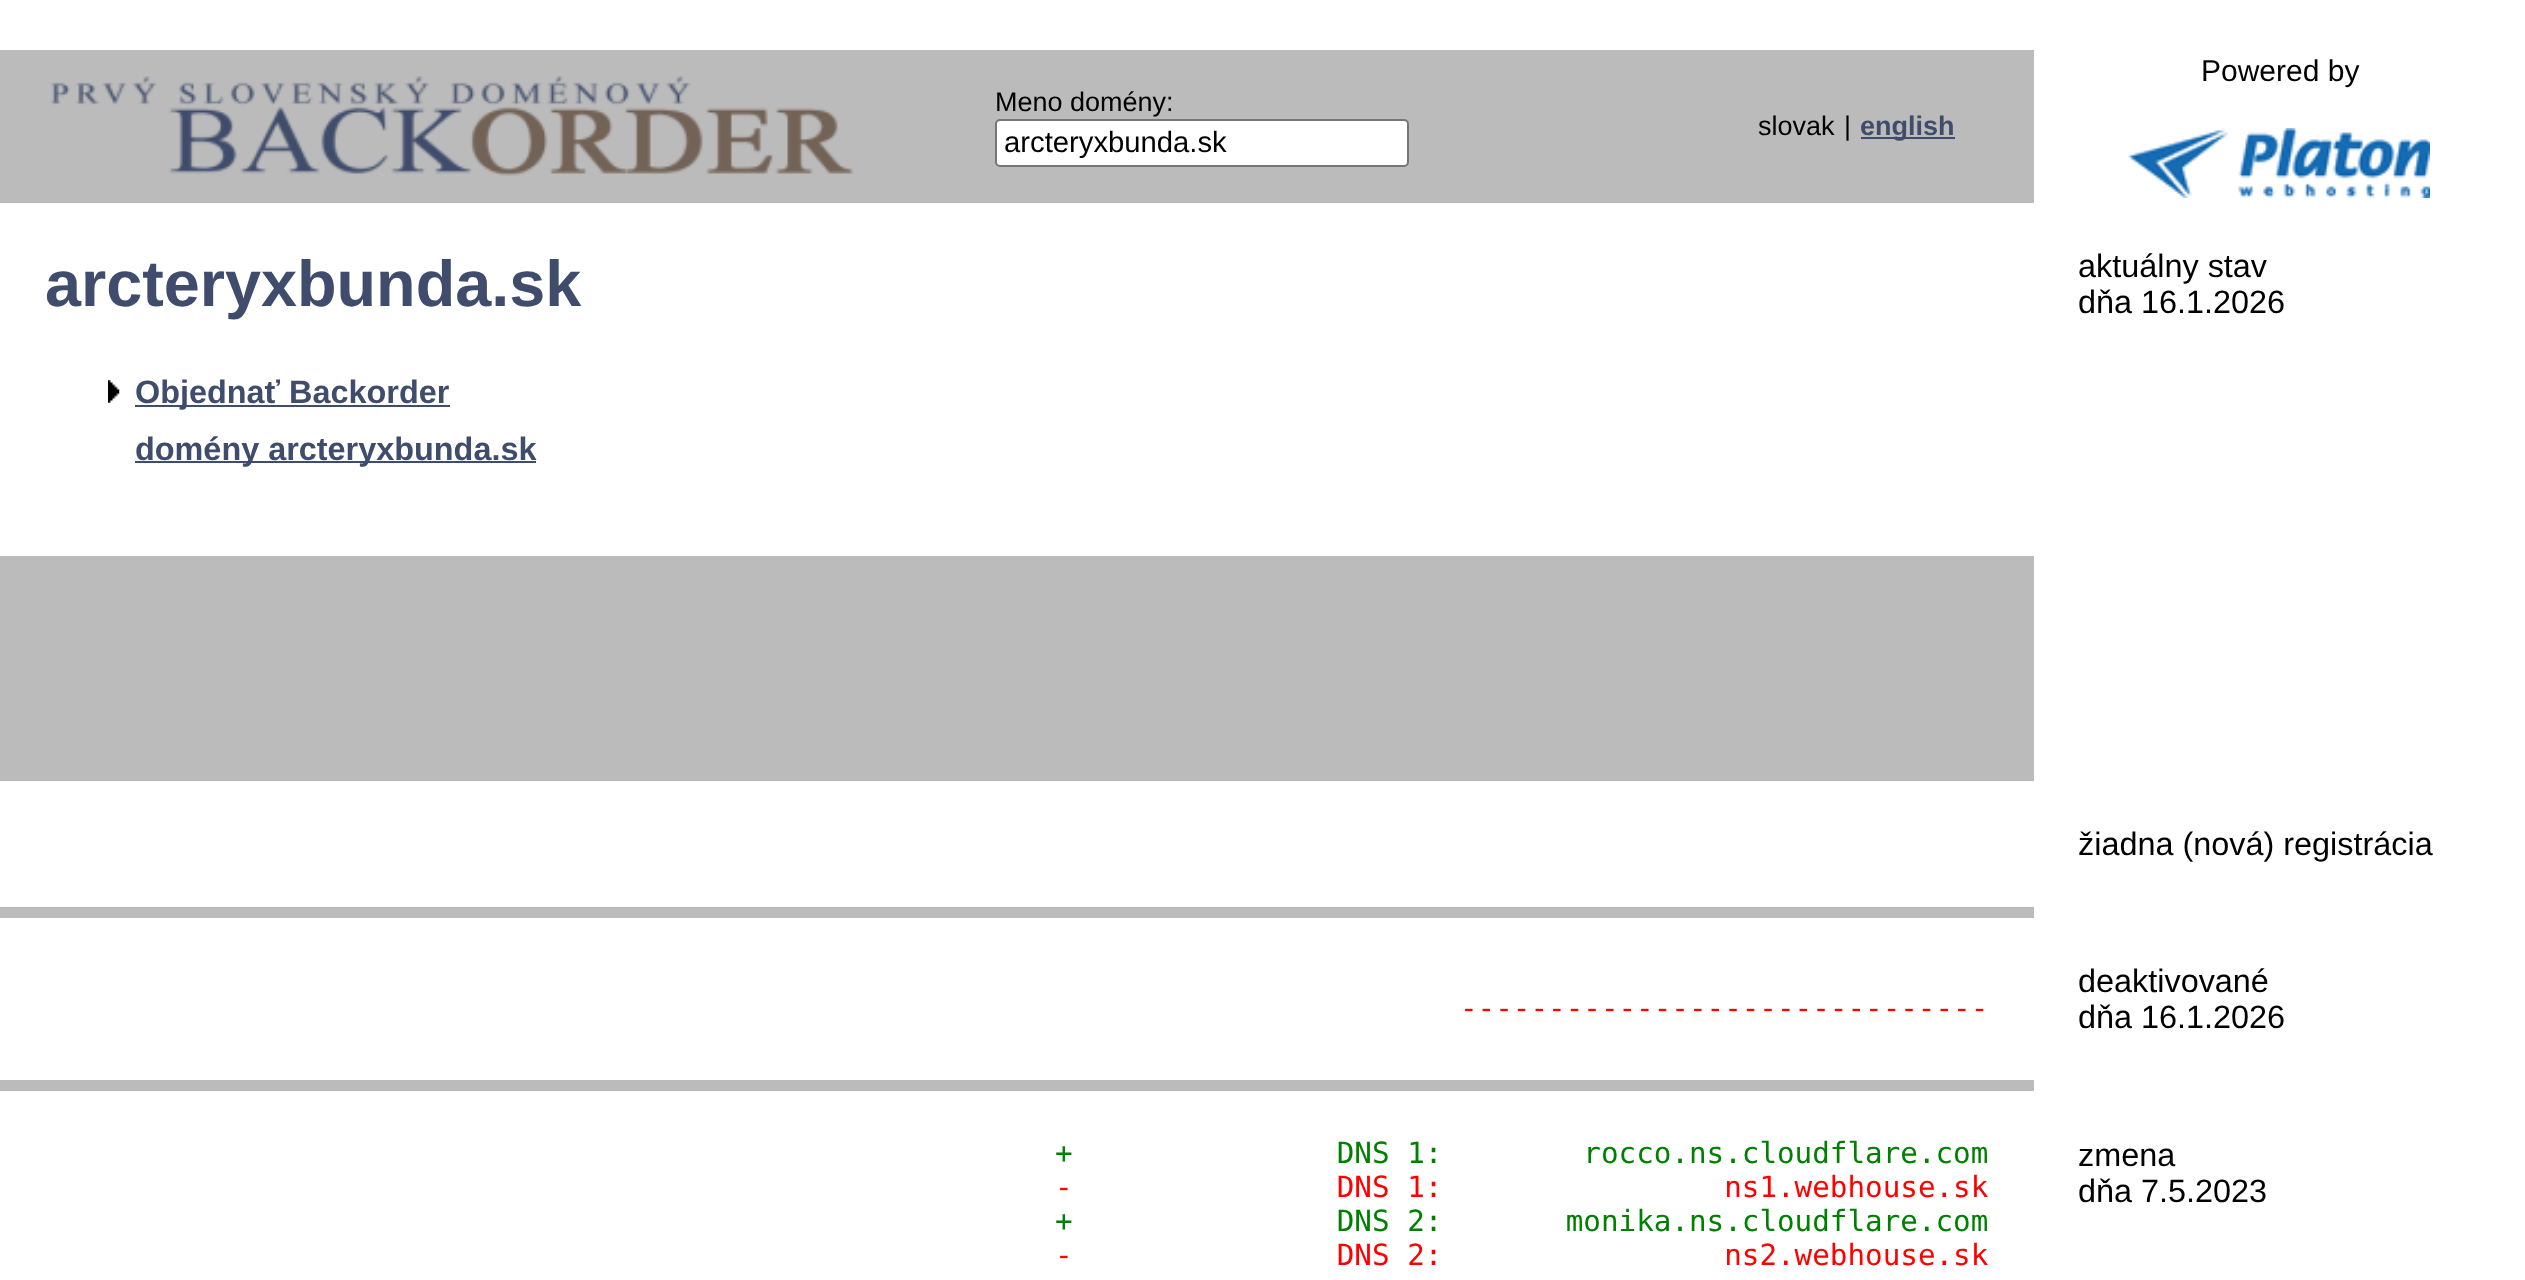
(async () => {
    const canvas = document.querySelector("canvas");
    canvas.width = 2525;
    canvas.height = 1280;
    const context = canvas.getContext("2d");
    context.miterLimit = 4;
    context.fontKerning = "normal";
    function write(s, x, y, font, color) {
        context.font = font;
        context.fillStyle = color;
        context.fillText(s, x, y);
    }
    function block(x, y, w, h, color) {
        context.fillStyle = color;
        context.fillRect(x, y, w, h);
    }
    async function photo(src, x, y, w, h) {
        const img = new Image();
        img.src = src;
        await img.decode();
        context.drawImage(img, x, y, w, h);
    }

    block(0, 0, 2525, 1280, "rgb(255, 255, 255)");
    block(0, 50, 2034, 153, "rgb(187, 187, 187)");
    await photo("media/1.png", 50, 76, 804, 100);
    write("Powered by", 2201, 81, "30px Liberation Sans", "rgb(0, 0, 0)");
    await photo("media/2.png", 2128, 128, 302, 70);
    write("Meno domény:", 995, 111, "27px Liberation Sans", "rgb(0, 0, 0)");
    context.fillStyle = "rgb(255, 255, 255)";
    context.beginPath();
    context.roundRect(996, 120, 412, 46, 4);
    context.fill();
    context.strokeStyle = "rgb(118, 118, 118)";
    context.lineWidth = 2;
    context.stroke();
    write("arcteryxbunda.sk", 1004, 152, "29.25px Liberation Sans", "rgb(0, 0, 0)");
    write("slovak", 1758, 135, "27px Liberation Sans", "rgb(0, 0, 0)");
    write("|", 1844, 135, "27px Liberation Sans", "rgb(0, 0, 0)");
    block(1861, 137, 94, 2, "rgb(63, 76, 107)");
    write("english", 1860, 135, "bold 27px Liberation Sans", "rgb(63, 76, 107)");
    write("arcteryxbunda.sk", 45, 306, "bold 64.75px Liberation Sans", "rgb(63, 76, 107)");
    await photo("media/3.png", 108, 380, 12, 23);
    block(135, 405, 315, 2, "rgb(63, 76, 107)");
    write("Objednať Backorder", 135, 403, "bold 32.4px Liberation Sans", "rgb(63, 76, 107)");
    block(135, 461, 401, 2, "rgb(63, 76, 107)");
    write("domény arcteryxbunda.sk", 135, 460, "bold 32.4px Liberation Sans", "rgb(63, 76, 107)");
    write("aktuálny stav", 2078, 277, "32.4px Liberation Sans", "rgb(0, 0, 0)");
    write("dňa 16.1.2026", 2078, 313, "32.4px Liberation Sans", "rgb(0, 0, 0)");
    block(0, 556, 2034, 225, "rgb(187, 187, 187)");
    write("žiadna (nová) registrácia", 2078, 855, "32.4px Liberation Sans", "rgb(0, 0, 0)");
    block(0, 907, 2034, 11, "rgb(187, 187, 187)");
    write("------------------------------", 1460, 1018, "29.25px DejaVu Sans Mono", "rgb(255, 0, 0)");
    write("deaktivované", 2078, 992, "32.4px Liberation Sans", "rgb(0, 0, 0)");
    write("dňa 16.1.2026", 2078, 1028, "32.4px Liberation Sans", "rgb(0, 0, 0)");
    block(0, 1080, 2034, 11, "rgb(187, 187, 187)");
    write("+               DNS 1:        rocco.ns.cloudflare.com", 1055, 1163, "29.25px DejaVu Sans Mono", "rgb(0, 128, 0)");
    write("-               DNS 1:                ns1.webhouse.sk", 1055, 1197, "29.25px DejaVu Sans Mono", "rgb(255, 0, 0)");
    write("+               DNS 2:       monika.ns.cloudflare.com", 1055, 1231, "29.25px DejaVu Sans Mono", "rgb(0, 128, 0)");
    write("-               DNS 2:                ns2.webhouse.sk", 1055, 1265, "29.25px DejaVu Sans Mono", "rgb(255, 0, 0)");
    write("zmena", 2078, 1166, "32.4px Liberation Sans", "rgb(0, 0, 0)");
    write("dňa 7.5.2023", 2078, 1202, "32.4px Liberation Sans", "rgb(0, 0, 0)");
})();
